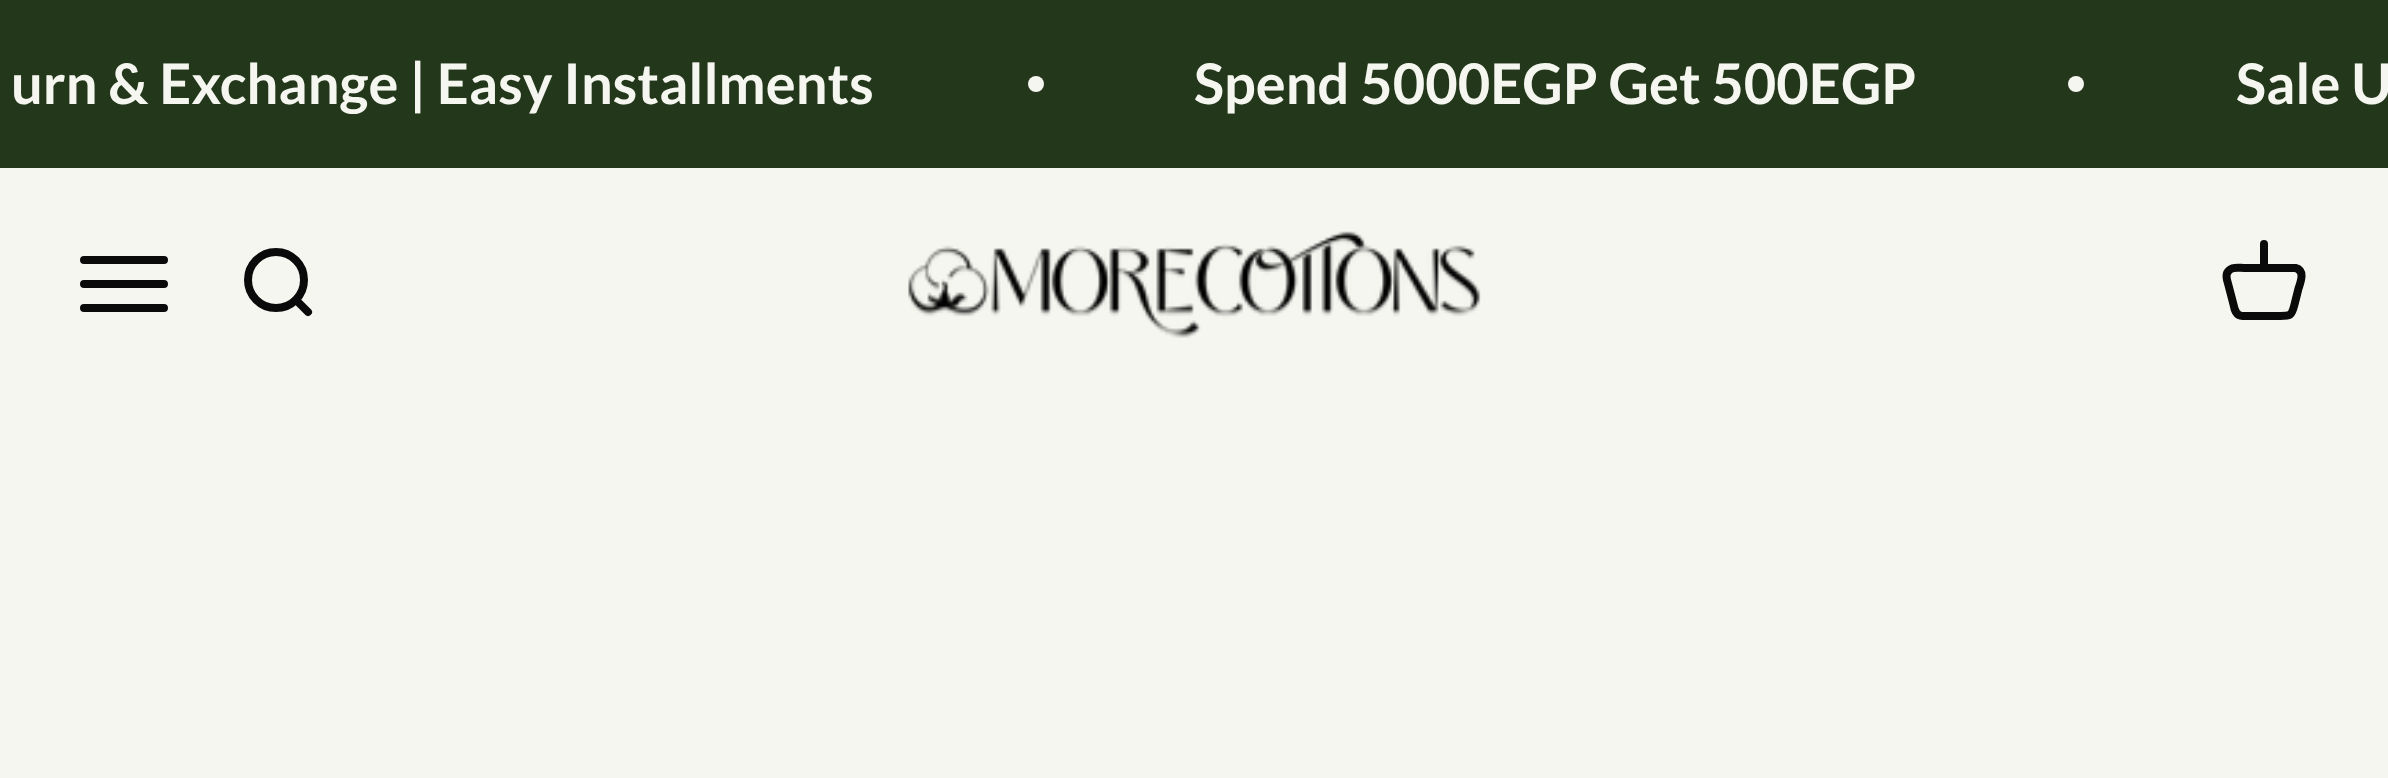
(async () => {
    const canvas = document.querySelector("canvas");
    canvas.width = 2388;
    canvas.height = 778;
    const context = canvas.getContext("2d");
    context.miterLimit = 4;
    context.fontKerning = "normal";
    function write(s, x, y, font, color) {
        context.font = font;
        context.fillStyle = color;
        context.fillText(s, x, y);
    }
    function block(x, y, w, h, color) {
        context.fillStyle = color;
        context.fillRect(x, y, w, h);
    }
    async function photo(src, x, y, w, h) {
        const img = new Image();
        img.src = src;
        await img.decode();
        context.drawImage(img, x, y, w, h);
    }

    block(0, 0, 2388, 778, "rgb(245, 246, 240)");
    block(0, 0, 2388, 168, "rgb(35, 55, 26)");
    write("urn & Exchange | Easy Installments", 11, 104, "bold 56px Lato", "rgb(245, 246, 240)");
    context.beginPath();
    context.arc(1036, 84, 8, 0, Math.PI * 2);
    context.fill();
    write("Spend 5000EGP Get 500EGP", 1194, 104, "bold 56px Lato", "rgb(245, 246, 240)");
    context.beginPath();
    context.arc(2076, 84, 8, 0, Math.PI * 2);
    context.fill();
    write("Sale U", 2236, 104, "bold 56px Lato", "rgb(245, 246, 240)");
    context.beginPath();
    context.moveTo(84, 260);
    context.lineTo(164, 260);
    context.moveTo(84, 284);
    context.lineTo(164, 284);
    context.moveTo(84, 308);
    context.lineTo(164, 308);
    context.strokeStyle = "rgb(10, 10, 10)";
    context.lineWidth = 8;
    context.lineCap = "round";
    context.stroke();
    context.beginPath();
    context.arc(276, 280, 28, 0, Math.PI * 2);
    context.stroke();
    context.beginPath();
    context.moveTo(296, 300);
    context.lineTo(308, 312);
    context.lineJoin = "round";
    context.stroke();
    await photo("media/1.png", 908, 231, 573, 107);
    context.beginPath();
    context.moveTo(2264, 268);
    context.lineTo(2244, 268);
    context.bezierCurveTo(2239.5, 268, 2233, 266.5, 2229.5, 270);
    context.bezierCurveTo(2225, 273.5, 2226.5, 278.5, 2228, 283.5);
    context.lineTo(2233.5, 304.5);
    context.bezierCurveTo(2234.5, 310, 2236, 316, 2242.5, 316);
    context.lineTo(2278.5, 316);
    context.bezierCurveTo(2290.5, 316, 2291.5, 316.5, 2294.5, 304.5);
    context.lineTo(2298.5, 288.5);
    context.bezierCurveTo(2300.5, 282.5, 2305.5, 270.5, 2295.5, 268);
    context.closePath();
    context.moveTo(2264, 268);
    context.lineTo(2264, 244);
    context.stroke();
})();
